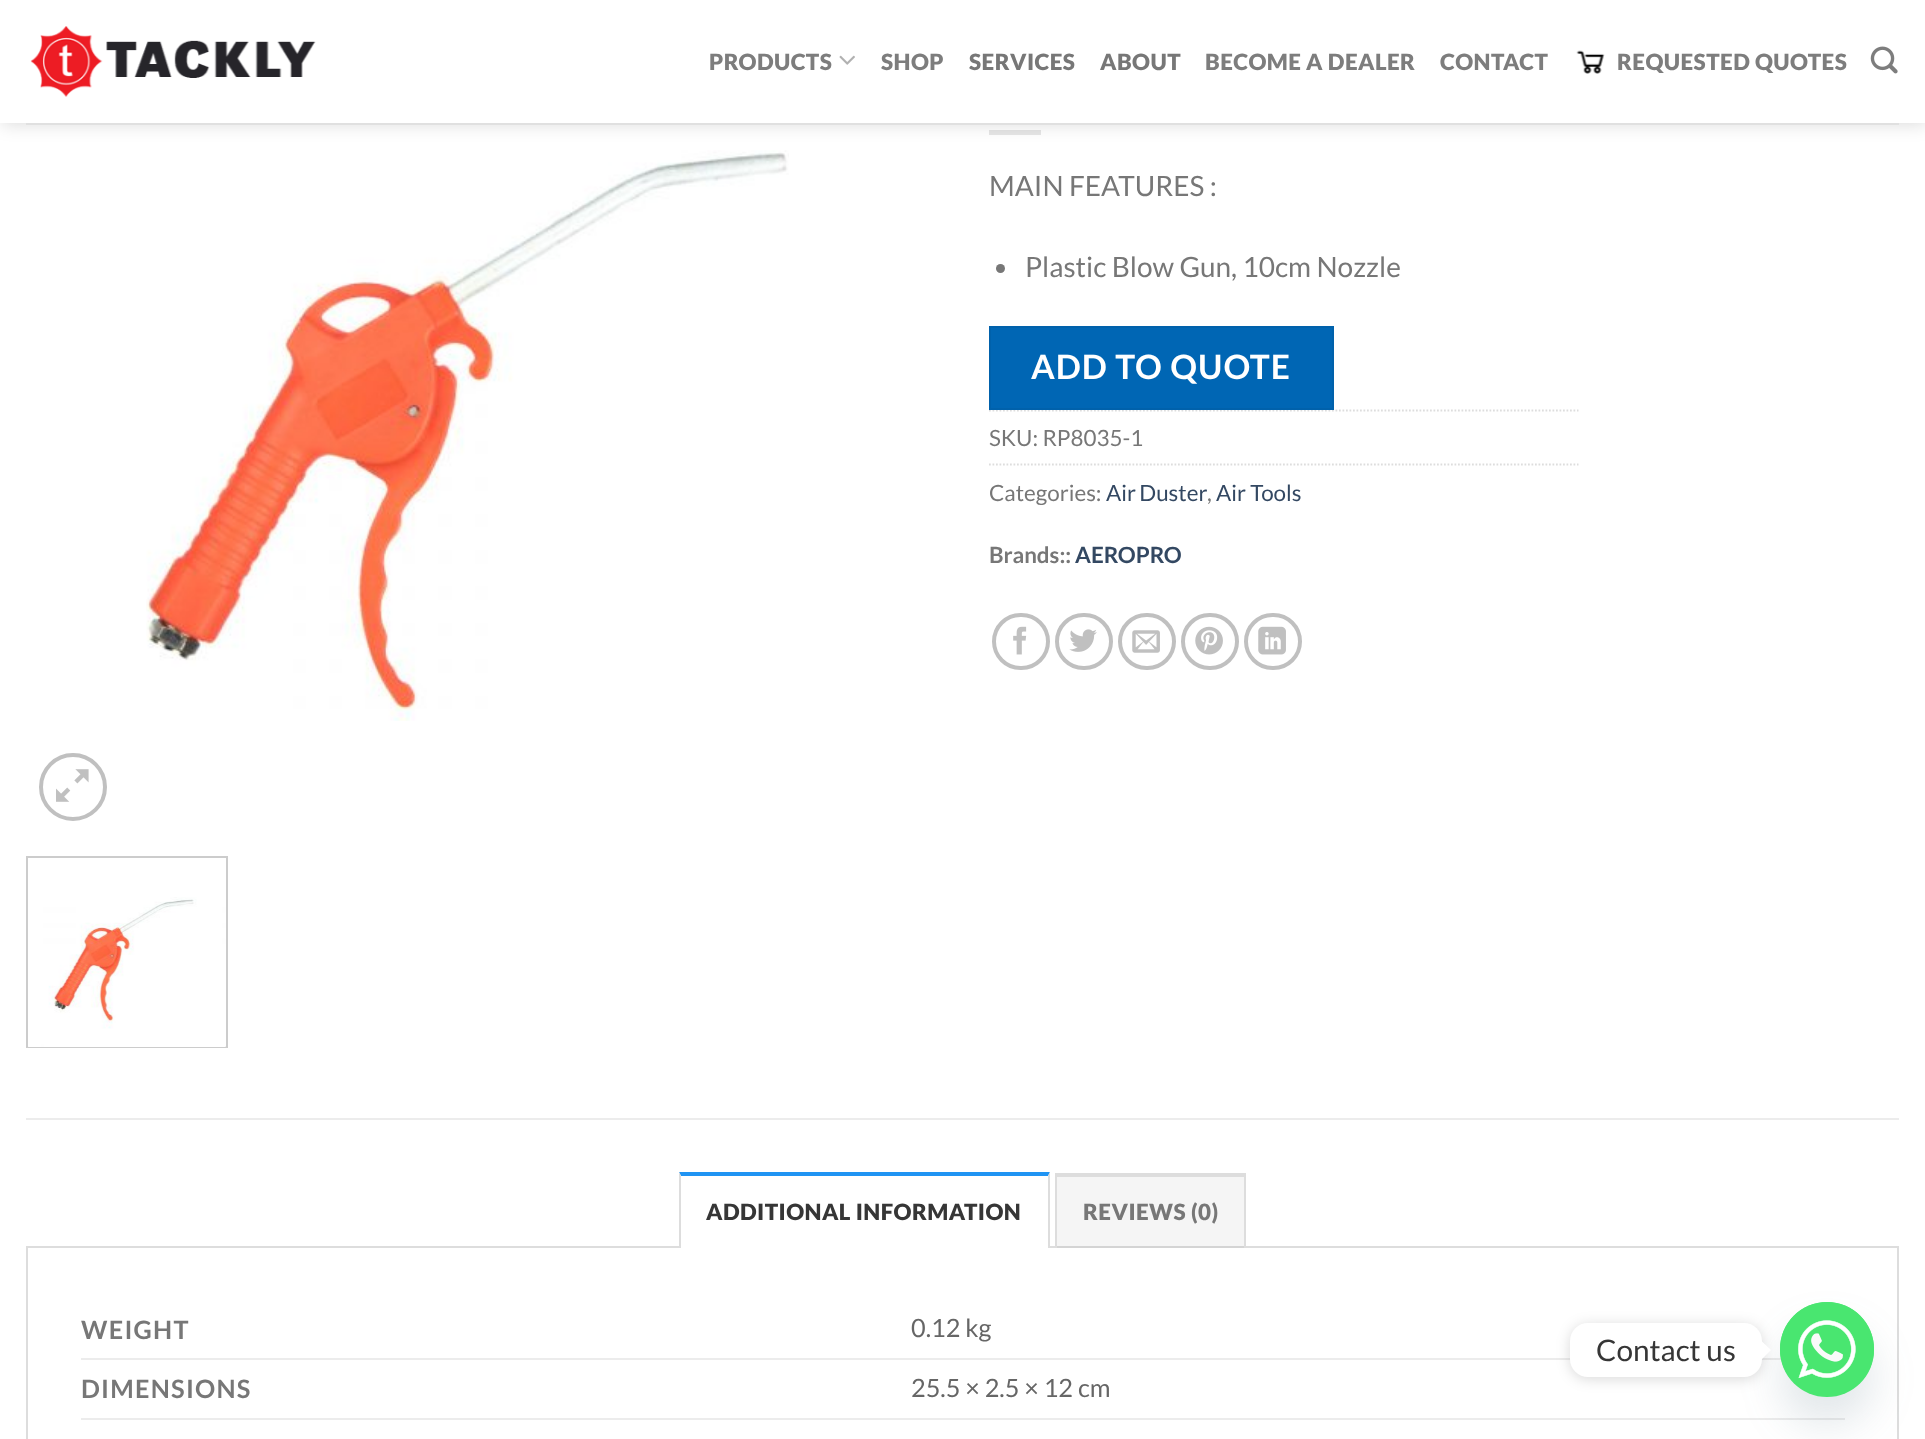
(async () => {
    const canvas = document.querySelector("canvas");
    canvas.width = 1925;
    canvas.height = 1439;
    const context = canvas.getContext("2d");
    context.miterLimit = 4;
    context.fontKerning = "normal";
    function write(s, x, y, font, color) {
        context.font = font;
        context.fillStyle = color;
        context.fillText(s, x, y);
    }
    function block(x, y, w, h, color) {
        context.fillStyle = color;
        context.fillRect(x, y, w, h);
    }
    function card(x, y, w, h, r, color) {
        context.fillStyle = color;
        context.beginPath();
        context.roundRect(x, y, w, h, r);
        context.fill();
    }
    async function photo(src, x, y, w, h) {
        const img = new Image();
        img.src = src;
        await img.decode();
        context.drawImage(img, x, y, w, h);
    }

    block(0, 0, 1925, 1439, "rgb(255, 255, 255)");
    await photo("media/5.png", 146, 150, 643, 571);
    block(989, 130, 52, 5, "rgb(230, 230, 230)");
    context.save();
    context.beginPath();
    context.moveTo(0, 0);
    context.lineTo(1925, 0);
    context.lineTo(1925, 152);
    context.lineTo(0, 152);
    context.closePath();
    context.moveTo(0, 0);
    context.lineTo(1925, 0);
    context.lineTo(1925, 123);
    context.lineTo(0, 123);
    context.closePath();
    context.clip("evenodd");
    context.fillStyle = "rgba(0, 0, 0, 0.15)";
    context.filter = "blur(9px)";
    context.beginPath();
    context.rect(2, 2, 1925, 122);
    context.fill();
    context.filter = "none";
    context.restore();
    await photo("media/1.png", 30, 26, 286, 71);
    context.letterSpacing = "0.45px";
    write("PRODUCTS", 709, 70, "900 22.4px Lato", "rgb(125, 125, 125)");
    await photo("media/2.png", 839, 55, 16, 10);
    write("SHOP", 881, 70, "900 22.4px Lato", "rgb(125, 125, 125)");
    write("SERVICES", 969, 70, "900 22.4px Lato", "rgb(119, 119, 119)");
    write("ABOUT", 1100, 70, "900 22.4px Lato", "rgb(119, 119, 119)");
    write("BECOME A DEALER", 1205, 70, "900 22.4px Lato", "rgb(125, 125, 125)");
    write("CONTACT", 1440, 70, "900 22.4px Lato", "rgb(125, 125, 125)");
    await photo("media/3.png", 1576, 50, 29, 24);
    write("REQUESTED QUOTES", 1617, 70, "900 22.4px Lato", "rgb(125, 125, 125)");
    await photo("media/4.png", 1870, 46, 28, 28);
    block(26, 123, 1873, 2, "rgb(224, 224, 224)");
    block(0, 122, 1925, 1, "rgba(255, 255, 255, 0.9)");
    context.beginPath();
    context.arc(73, 787, 32, 0, Math.PI * 2);
    context.strokeStyle = "rgb(192, 192, 192)";
    context.lineWidth = 4;
    context.stroke();
    await photo("media/6.png", 56, 769, 33, 33);
    context.strokeStyle = "rgb(204, 204, 204)";
    context.lineWidth = 2;
    context.strokeRect(27, 857, 200, 190);
    await photo("media/7.png", 28, 897, 198, 150);
    context.letterSpacing = "0px";
    write("MAIN FEATURES :", 989, 196, "28px Lato", "rgb(119, 119, 119)");
    context.beginPath();
    context.arc(1000.5, 268.5, 4.5, 0, Math.PI * 2);
    context.fill();
    write("Plastic Blow Gun, 10cm Nozzle", 1025, 277, "28px Lato", "rgb(119, 119, 119)");
    context.beginPath();
    context.moveTo(989, 410.5);
    context.lineTo(1578.5, 410.5);
    context.strokeStyle = "rgb(221, 221, 221)";
    context.lineWidth = 1.8;
    context.setLineDash([1.75, 1.75]);
    context.stroke();
    context.fillStyle = "rgb(0, 102, 180)";
    context.beginPath();
    context.rect(990, 327, 343, 82);
    context.fill();
    context.strokeStyle = "rgb(0, 97, 171)";
    context.lineWidth = 2;
    context.setLineDash([]);
    context.stroke();
    context.letterSpacing = "1px";
    write("ADD TO QUOTE", 1031, 379, "bold 33.5px Lato", "rgb(255, 255, 255)");
    context.letterSpacing = "0px";
    write("SKU: RP8035-1", 989, 446, "22.4px Lato", "rgb(119, 119, 119)");
    context.beginPath();
    context.moveTo(989, 464.5);
    context.lineTo(1578.5, 464.5);
    context.strokeStyle = "rgb(221, 221, 221)";
    context.lineWidth = 1.8;
    context.setLineDash([1.75, 1.75]);
    context.stroke();
    write("Categories:", 989, 501, "22.4px Lato", "rgb(119, 119, 119)");
    context.wordSpacing = "-1px";
    write("Air Duster", 1106, 501, "22.4px Lato", "rgb(51, 72, 98)");
    context.wordSpacing = "0px";
    write(",", 1207, 501, "22.4px Lato", "rgb(119, 119, 119)");
    write("Air Tools", 1216, 501, "22.4px Lato", "rgb(51, 72, 98)");
    write("Brands::", 989, 563, "bold 22.4px Lato", "rgb(119, 119, 119)");
    write("AEROPRO", 1075, 563, "bold 22.4px Lato", "rgb(51, 72, 98)");
    context.beginPath();
    context.roundRect(994, 615, 54, 53, 26.5);
    context.strokeStyle = "rgb(192, 192, 192)";
    context.lineWidth = 4;
    context.setLineDash([]);
    context.stroke();
    await photo("media/8.png", 1013, 626, 14, 29);
    context.beginPath();
    context.roundRect(1057, 615, 54, 53, 26.5);
    context.stroke();
    await photo("media/9.png", 1069, 629, 28, 23);
    context.beginPath();
    context.roundRect(1120, 615, 54, 53, 26.5);
    context.stroke();
    await photo("media/10.png", 1132, 630, 28, 23);
    context.beginPath();
    context.roundRect(1183, 615, 54, 53, 26.5);
    context.stroke();
    await photo("media/11.png", 1195, 626, 28, 29);
    context.beginPath();
    context.roundRect(1246, 615, 54, 53, 26.5);
    context.stroke();
    await photo("media/12.png", 1258, 626, 28, 29);
    block(26, 1118, 1873, 2, "rgb(236, 236, 236)");
    context.strokeStyle = "rgb(221, 221, 221)";
    context.lineWidth = 2;
    context.strokeRect(27, 1247, 1871, 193);
    block(679, 1246, 371, 2, "rgb(255, 255, 255)");
    context.fillStyle = "rgb(32, 148, 243)";
    context.beginPath();
    context.moveTo(679, 1172);
    context.lineTo(1050, 1172);
    context.lineTo(1048, 1176);
    context.lineTo(681, 1176);
    context.closePath();
    context.fill();
    context.fillStyle = "rgb(221, 221, 221)";
    context.beginPath();
    context.moveTo(1050, 1172);
    context.lineTo(1050, 1248);
    context.lineTo(1048, 1248);
    context.lineTo(1048, 1176);
    context.closePath();
    context.fill();
    context.beginPath();
    context.moveTo(679, 1248);
    context.lineTo(679, 1172);
    context.lineTo(681, 1176);
    context.lineTo(681, 1248);
    context.closePath();
    context.fill();
    context.letterSpacing = "0.45px";
    write("ADDITIONAL INFORMATION", 706, 1220, "900 22.4px Lato", "rgb(54, 54, 54)");
    block(1057, 1177, 187, 71, "rgba(0, 0, 0, 0.04)");
    block(1055, 1173, 191, 4, "rgb(221, 221, 221)");
    block(1244, 1173, 2, 75, "rgb(221, 221, 221)");
    block(1055, 1173, 2, 75, "rgb(221, 221, 221)");
    write("REVIEWS (0)", 1083, 1220, "900 22.4px Lato", "rgb(119, 119, 119)");
    block(81, 1358, 1701, 2, "rgb(236, 236, 236)");
    context.letterSpacing = "1.25px";
    write("WEIGHT", 81, 1339, "bold 25.25px Lato", "rgb(119, 119, 119)");
    context.letterSpacing = "0px";
    write("0.12 kg", 911, 1337, "25.25px Lato", "rgb(102, 102, 102)");
    block(81, 1418, 1764, 2, "rgb(236, 236, 236)");
    context.letterSpacing = "1.25px";
    write("DIMENSIONS", 81, 1398, "bold 25.25px Lato", "rgb(119, 119, 119)");
    context.letterSpacing = "0px";
    write("25.5 × 2.5 × 12 cm", 911, 1397, "25.25px Lato", "rgb(102, 102, 102)");
    context.fillStyle = "rgba(73, 104, 126, 0.16)";
    context.filter = "blur(21px)";
    context.beginPath();
    context.roundRect(1780, 1330, 94, 95, 47);
    context.fill();
    context.filter = "none";
    card(1780, 1302, 94, 95, 47, "rgb(73, 230, 112)");
    await photo("media/13.png", 1780, 1302, 94, 77);
    context.fillStyle = "rgba(0, 0, 0, 0.15)";
    context.filter = "blur(7px)";
    context.beginPath();
    context.roundRect(1570, 1325, 192, 54, 18);
    context.fill();
    context.filter = "none";
    card(1570, 1323, 192, 54, 18, "rgb(255, 255, 255)");
    write("Contact us", 1596, 1361, "29.75px Lato", "rgb(54, 54, 54)");
    context.fillStyle = "rgb(255, 255, 255)";
    context.beginPath();
    context.moveTo(1762, 1359);
    context.lineTo(1762, 1341.5);
    context.lineTo(1771, 1350);
    context.closePath();
    context.fill();
})();
